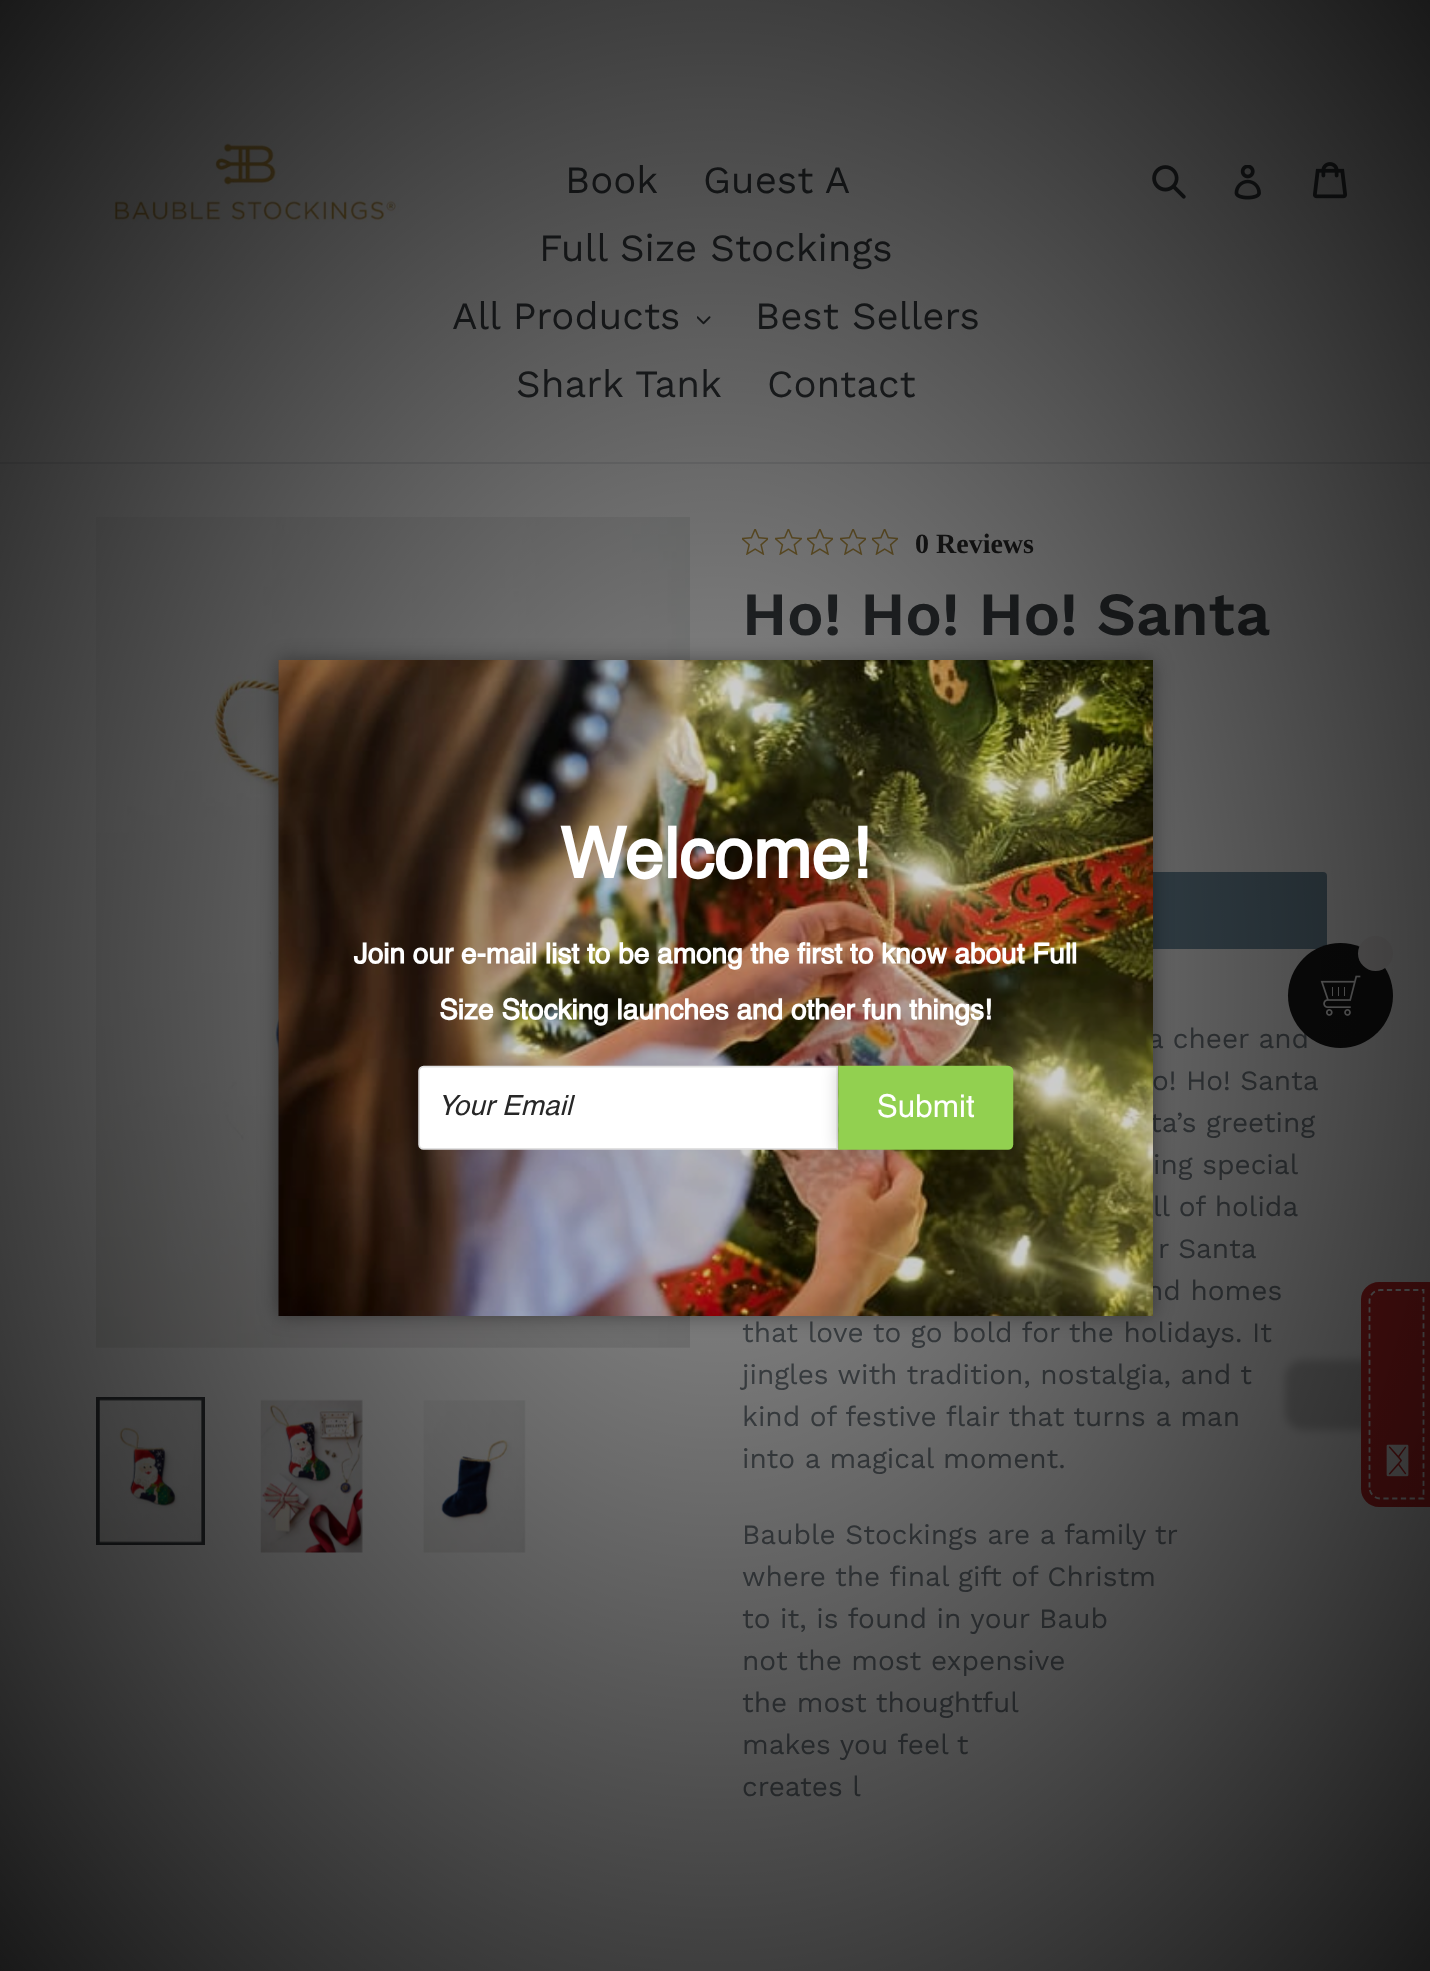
(async () => {
    const canvas = document.querySelector("canvas");
    canvas.width = 1430;
    canvas.height = 1971;
    const context = canvas.getContext("2d");
    context.miterLimit = 4;
    context.fontKerning = "normal";
    function write(s, x, y, font, color) {
        context.font = font;
        context.fillStyle = color;
        context.fillText(s, x, y);
    }
    function block(x, y, w, h, color) {
        context.fillStyle = color;
        context.fillRect(x, y, w, h);
    }
    function card(x, y, w, h, r, color) {
        context.fillStyle = color;
        context.beginPath();
        context.roundRect(x, y, w, h, r);
        context.fill();
    }
    async function photo(src, x, y, w, h) {
        const img = new Image();
        img.src = src;
        await img.decode();
        context.drawImage(img, x, y, w, h);
    }
    let gradient;

    block(0, 0, 1430, 1971, "rgb(255, 255, 255)");
    context.fillStyle = "rgba(0, 0, 0, 0.2)";
    context.filter = "blur(4.5px)";
    context.beginPath();
    context.roundRect(1285, 1360, 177, 70, 18);
    context.fill();
    context.filter = "none";
    context.fillStyle = "rgb(219, 44, 44)";
    context.beginPath();
    context.moveTo(1361, 1489);
    context.lineTo(1361, 1299);
    context.bezierCurveTo(1361, 1290, 1369, 1282, 1379, 1282);
    context.lineTo(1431, 1282);
    context.lineTo(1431, 1507);
    context.lineTo(1379, 1507);
    context.bezierCurveTo(1369, 1507, 1361, 1499, 1361, 1489);
    context.closePath();
    context.fill();
    context.beginPath();
    context.moveTo(1369.5, 1487.5);
    context.lineTo(1369.5, 1301);
    context.bezierCurveTo(1369.5, 1295, 1374.5, 1290, 1380.5, 1290);
    context.lineTo(1423.5, 1290);
    context.lineTo(1423.5, 1498.5);
    context.lineTo(1380.5, 1498.5);
    context.bezierCurveTo(1374.5, 1498.5, 1369.5, 1493.5, 1369.5, 1487.5);
    context.closePath();
    context.strokeStyle = "rgb(255, 255, 255)";
    context.lineWidth = 1.8;
    context.setLineDash([5.25, 3.5]);
    context.stroke();
    await photo("media/2.png", 1386, 1444, 23, 33);
    block(0, 462, 1430, 2, "rgb(232, 233, 235)");
    await photo("media/3.png", 110, 143, 289, 79);
    write("Book", 565, 193, "38.5px Work Sans", "rgb(61, 66, 70)");
    write("Guest A", 703, 193, "38.5px Work Sans", "rgb(61, 66, 70)");
    write("Full Size Stockings", 539, 261, "38.5px Work Sans", "rgb(61, 66, 70)");
    write("All Products", 452, 329, "38.5px Work Sans", "rgb(61, 66, 70)");
    await photo("media/4.png", 697, 316, 14, 9);
    write("Best Sellers", 755, 329, "38.5px Work Sans", "rgb(61, 66, 70)");
    write("Shark Tank", 516, 397, "38.5px Work Sans", "rgb(61, 66, 70)");
    write("Contact", 767, 397, "38.5px Work Sans", "rgb(61, 66, 70)");
    await photo("media/5.png", 1152, 165, 34, 34);
    await photo("media/6.png", 1234, 165, 27, 35);
    await photo("media/7.png", 1313, 162, 34, 37);
    await photo("media/8.png", 96, 517, 594, 831);
    context.strokeStyle = "rgb(61, 66, 70)";
    context.lineWidth = 4;
    context.setLineDash([]);
    context.strokeRect(98, 1399, 105, 144);
    await photo("media/9.png", 99, 1399, 103, 144);
    await photo("media/10.png", 260, 1399, 103, 154);
    await photo("media/11.png", 423, 1400, 103, 153);
    await photo("media/12.png", 742, 529, 26, 26);
    await photo("media/13.png", 775, 529, 27, 26);
    await photo("media/14.png", 807, 529, 26, 26);
    await photo("media/12.png", 840, 529, 26, 26);
    await photo("media/15.png", 872, 529, 26, 26);
    write("0 Reviews", 915, 553, "bold 28px Liberation Serif", "rgb(44, 44, 44)");
    write("Ho! Ho! Ho! Santa", 742, 635, "600 61.25px Work Sans", "rgb(61, 66, 70)");
    card(751, 872, 576, 77, 4, "rgb(119, 150, 168)");
    write("a cheer and", 1148, 1048, "28px Work Sans", "rgb(120, 129, 136)");
    write("o! Ho! Santa", 1152, 1090, "28px Work Sans", "rgb(120, 129, 136)");
    write("ta’s greeting", 1150, 1132, "28px Work Sans", "rgb(120, 129, 136)");
    write("ing special", 1153, 1174, "28px Work Sans", "rgb(120, 129, 136)");
    write("ll of holida", 1153, 1216, "28px Work Sans", "rgb(120, 129, 136)");
    write("r Santa", 1158, 1258, "28px Work Sans", "rgb(120, 129, 136)");
    write("nd homes", 1146, 1300, "28px Work Sans", "rgb(120, 129, 136)");
    write("that love to go bold for the holidays. It", 742, 1342, "28px Work Sans", "rgb(120, 129, 136)");
    write("jingles with tradition, nostalgia, and t", 742, 1384, "28px Work Sans", "rgb(120, 129, 136)");
    write("kind of festive flair that turns a man", 742, 1426, "28px Work Sans", "rgb(120, 129, 136)");
    write("into a magical moment.", 742, 1468, "28px Work Sans", "rgb(120, 129, 136)");
    write("Bauble Stockings are a family tr", 742, 1544, "28px Work Sans", "rgb(120, 129, 136)");
    write("where the final gift of Christm", 742, 1586, "28px Work Sans", "rgb(120, 129, 136)");
    write("to it, is found in your Baub", 742, 1628, "28px Work Sans", "rgb(120, 129, 136)");
    write("not the most expensive", 742, 1670, "28px Work Sans", "rgb(120, 129, 136)");
    write("the most thoughtful", 742, 1712, "28px Work Sans", "rgb(120, 129, 136)");
    write("makes you feel t", 742, 1754, "28px Work Sans", "rgb(120, 129, 136)");
    write("creates l", 742, 1796, "28px Work Sans", "rgb(120, 129, 136)");
    context.fillStyle = "rgb(25, 25, 25)";
    context.beginPath();
    context.arc(1340.5, 995.5, 52.5, 0, Math.PI * 2);
    context.fill();
    context.fillStyle = "rgb(247, 243, 243)";
    context.beginPath();
    context.arc(1375.5, 953.5, 17.5, 0, Math.PI * 2);
    context.fill();
    await photo("media/16.png", 1320, 975, 41, 41);
    gradient = context.createRadialGradient(716, 715.29, 0, 716, 715.29, 1012);
    gradient.addColorStop(0, "rgba(0, 0, 0, 0.4)");
    gradient.addColorStop(1, "rgba(0, 0, 0, 0.9)");
    context.fillStyle = gradient;
    context.beginPath();
    context.rect(0, 0, 1430, 1971);
    context.save();
    context.clip();
    context.scale(1, 1395 / 1012);
    context.fillRect(0, 0, 1430, 1430);
    context.restore();
    context.fillStyle = "rgba(0, 0, 0, 0.4)";
    context.filter = "blur(9.5px)";
    context.beginPath();
    context.roundRect(278, 660, 875, 656, 4);
    context.fill();
    context.filter = "none";
    await photo("media/1.png", 278, 660, 875, 656);
})();
